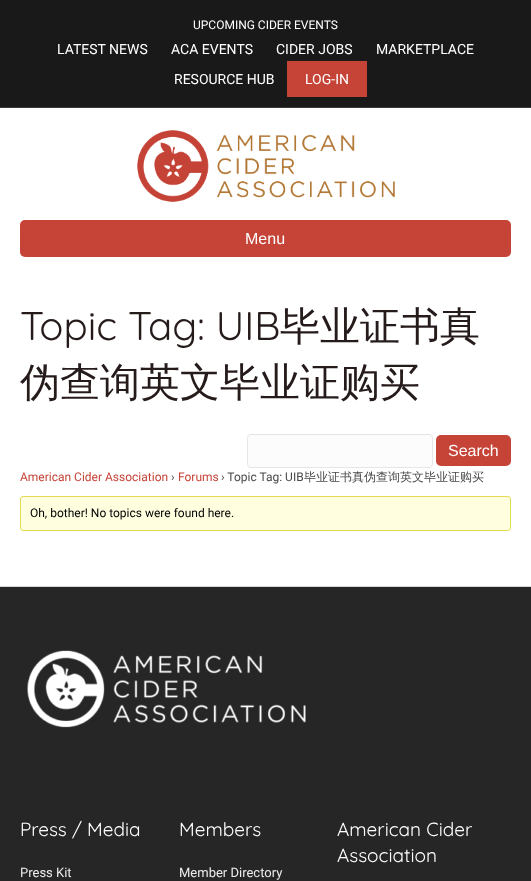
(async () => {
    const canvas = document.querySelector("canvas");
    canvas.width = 531;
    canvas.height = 881;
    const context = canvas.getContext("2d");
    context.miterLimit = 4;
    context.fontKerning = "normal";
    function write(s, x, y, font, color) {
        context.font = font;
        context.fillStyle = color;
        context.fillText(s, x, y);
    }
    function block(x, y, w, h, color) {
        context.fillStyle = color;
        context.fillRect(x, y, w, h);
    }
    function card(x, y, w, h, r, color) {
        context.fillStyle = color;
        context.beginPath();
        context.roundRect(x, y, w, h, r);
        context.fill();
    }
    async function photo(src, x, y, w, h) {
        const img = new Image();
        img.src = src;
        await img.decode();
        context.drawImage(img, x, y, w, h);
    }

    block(0, 0, 531, 881, "rgb(25, 25, 25)");
    block(0, 107, 531, 1, "rgb(58, 58, 58)");
    write("UPCOMING CIDER EVENTS", 193, 29, "12px Roboto", "rgb(255, 255, 255)");
    write("LATEST NEWS", 57, 54, "14px Roboto", "rgb(255, 255, 255)");
    write("ACA EVENTS", 171, 54, "14px Roboto", "rgb(255, 255, 255)");
    write("CIDER JOBS", 276, 54, "14px Roboto", "rgb(255, 255, 255)");
    write("MARKETPLACE", 376, 54, "14px Roboto", "rgb(255, 255, 255)");
    write("RESOURCE HUB", 174, 84, "14px Roboto", "rgb(255, 255, 255)");
    block(287, 61, 80, 36, "rgb(197, 68, 55)");
    write("LOG-IN", 305, 84, "14px Roboto", "rgb(255, 255, 255)");
    block(0, 108, 531, 478, "rgb(255, 255, 255)");
    await photo("media/1.png", 137, 130, 258, 72);
    card(20, 220, 491, 37, 5, "rgb(197, 68, 55)");
    write("Menu", 245, 244, "16px Liberation Sans", "rgb(255, 255, 255)");
    write("Topic Tag: UIB", 20, 340, "300 40px Quicksand", "rgb(37, 27, 26)");
    write("毕业证书真", 280, 340, "500 40px WenQuanYi Zen Hei", "rgb(37, 27, 26)");
    write("伪查询英文毕业证购买", 20, 396, "500 40px WenQuanYi Zen Hei", "rgb(37, 27, 26)");
    context.fillStyle = "rgb(252, 252, 252)";
    context.beginPath();
    context.roundRect(247.5, 434.5, 185, 33, 3.5);
    context.fill();
    context.strokeStyle = "rgb(230, 230, 230)";
    context.stroke();
    card(436, 435, 75, 31, 5, "rgb(197, 68, 55)");
    write("Search", 448, 456, "16px Liberation Sans", "rgb(255, 255, 255)");
    write("American Cider Association", 20, 481, "12px Roboto", "rgb(197, 68, 55)");
    write("›", 171, 481, "12px Roboto", "rgb(73, 73, 73)");
    write("Forums", 178, 481, "12px Roboto", "rgb(197, 68, 55)");
    write("› Topic Tag: UIB", 221, 481, "12px Roboto", "rgb(73, 73, 73)");
    write("毕业证书真伪查询英文毕业证购买", 304, 481, "500 12px WenQuanYi Zen Hei", "rgb(73, 73, 73)");
    context.fillStyle = "rgb(255, 255, 224)";
    context.beginPath();
    context.roundRect(20.5, 496.5, 490, 34, 2.5);
    context.fill();
    context.strokeStyle = "rgb(230, 219, 85)";
    context.stroke();
    write("Oh, bother! No topics were found here.", 30, 517, "12px Roboto", "rgb(0, 0, 0)");
    block(0, 587, 531, 294, "rgb(38, 38, 38)");
    block(0, 586, 531, 1, "rgb(213, 213, 213)");
    await photo("media/2.png", 27, 650, 279, 78);
    write("Press / Media", 20, 836, "300 19px Quicksand", "rgb(255, 255, 255)");
    write("Press Kit", 20, 877, "13px Roboto", "rgb(237, 237, 237)");
    write("Members", 179, 836, "300 19px Quicksand", "rgb(255, 255, 255)");
    write("Member Directory", 179, 877, "13px Roboto", "rgb(237, 237, 237)");
    write("American Cider", 337, 836, "300 19px Quicksand", "rgb(255, 255, 255)");
    write("Association", 337, 862, "300 19px Quicksand", "rgb(255, 255, 255)");
})();
